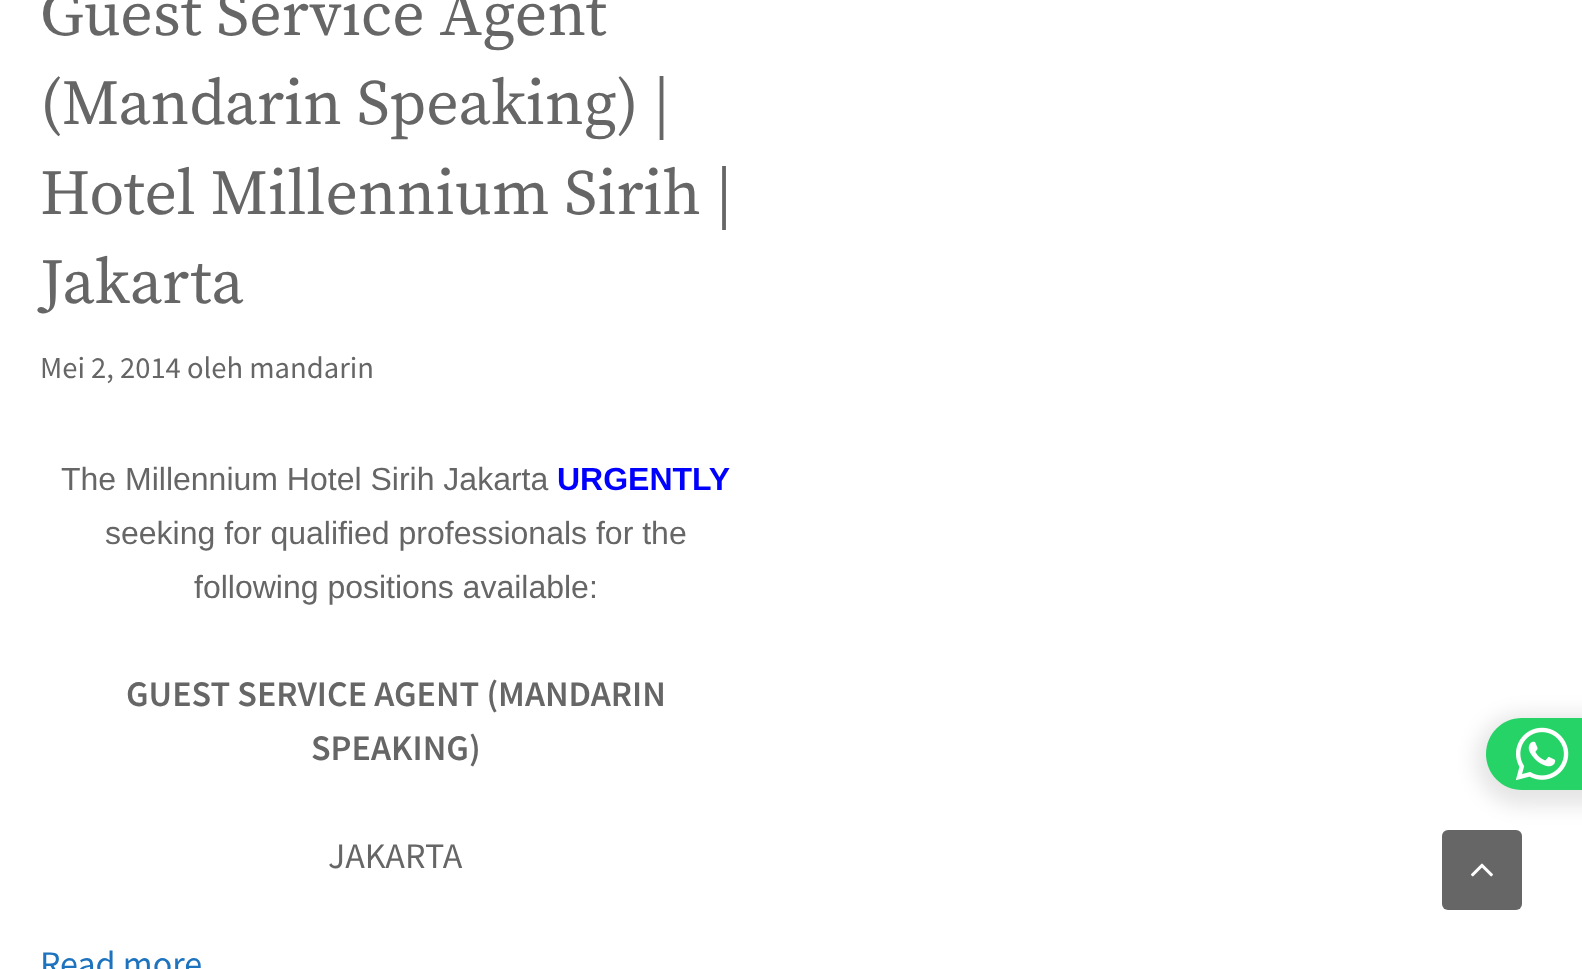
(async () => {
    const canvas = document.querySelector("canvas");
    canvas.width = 1582;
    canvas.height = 969;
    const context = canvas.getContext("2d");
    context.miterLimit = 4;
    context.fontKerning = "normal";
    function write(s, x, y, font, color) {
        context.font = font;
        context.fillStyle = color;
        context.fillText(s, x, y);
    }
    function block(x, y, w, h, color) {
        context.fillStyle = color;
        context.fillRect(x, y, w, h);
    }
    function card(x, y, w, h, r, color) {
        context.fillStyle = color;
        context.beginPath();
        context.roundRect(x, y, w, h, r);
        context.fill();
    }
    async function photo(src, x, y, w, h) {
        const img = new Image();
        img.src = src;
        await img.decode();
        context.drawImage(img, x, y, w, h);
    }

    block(0, 0, 1582, 969, "rgb(255, 255, 255)");
    write("Guest Service Agent", 40, 35, "64px Source Serif Pro", "rgb(102, 102, 102)");
    write("(Mandarin Speaking) |", 40, 124, "64px Source Serif Pro", "rgb(102, 102, 102)");
    write("Hotel Millennium Sirih |", 40, 214, "64px Source Serif Pro", "rgb(102, 102, 102)");
    write("Jakarta", 40, 303, "64px Source Serif Pro", "rgb(102, 102, 102)");
    write("Mei 2, 2014 oleh mandarin", 40, 378, "30.6px Source Sans Pro", "rgb(102, 102, 102)");
    write("The Millennium Hotel Sirih Jakarta", 61, 490, "32px Liberation Sans", "rgb(102, 102, 102)");
    write("URGENTLY", 557, 490, "bold 32px Liberation Sans", "rgb(0, 0, 255)");
    write("seeking for qualified professionals for the", 105, 544, "32px Liberation Sans", "rgb(102, 102, 102)");
    write("following positions available:", 194, 598, "32px Liberation Sans", "rgb(102, 102, 102)");
    write("GUEST SERVICE AGENT (MANDARIN", 126, 706, "600 36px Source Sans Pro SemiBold", "rgb(102, 102, 102)");
    write("SPEAKING)", 311, 760, "600 36px Source Sans Pro SemiBold", "rgb(102, 102, 102)");
    write("JAKARTA", 328, 868, "36px Source Sans Pro", "rgb(102, 102, 102)");
    write("Read more", 40, 976, "36px Source Sans Pro", "rgb(30, 115, 190)");
    context.fillStyle = "rgba(0, 0, 0, 0.1)";
    context.filter = "blur(10px)";
    context.beginPath();
    context.roundRect(1476, 714, 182, 92, 46);
    context.fill();
    context.filter = "none";
    context.fillStyle = "rgb(37, 211, 102)";
    context.beginPath();
    context.moveTo(1522, 718);
    context.lineTo(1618, 718);
    context.lineTo(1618, 790);
    context.lineTo(1522, 790);
    context.bezierCurveTo(1502, 790, 1486, 774, 1486, 754);
    context.bezierCurveTo(1486, 734, 1502, 718, 1522, 718);
    context.closePath();
    context.fill();
    await photo("media/1.png", 1515, 727, 54, 54);
    card(1442, 830, 80, 80, 6, "rgb(102, 102, 102)");
    await photo("media/2.png", 1471, 863, 22, 14);
})();
